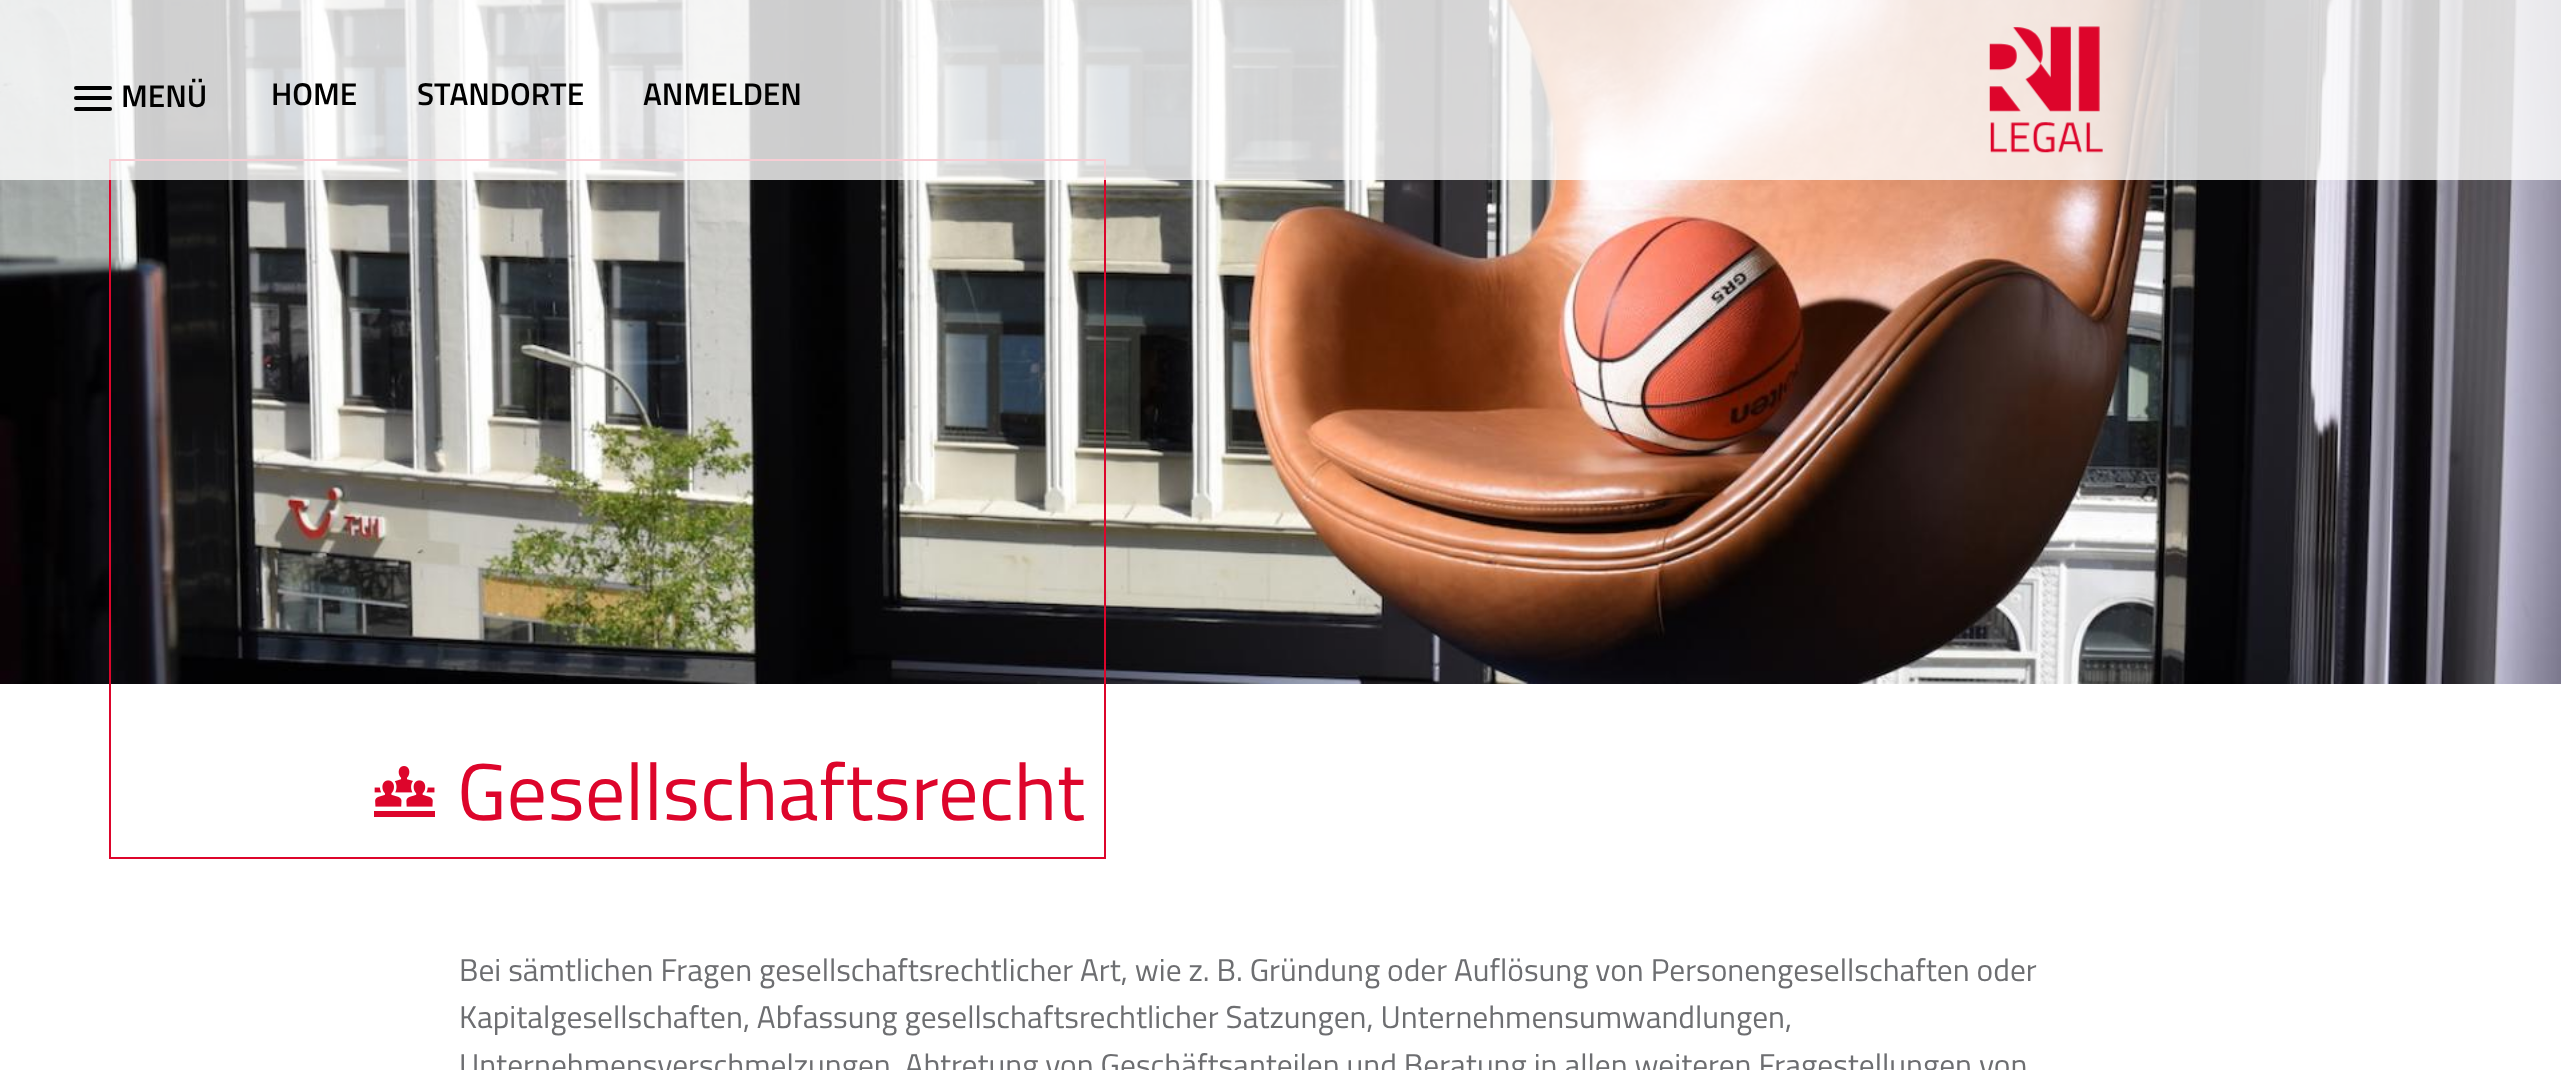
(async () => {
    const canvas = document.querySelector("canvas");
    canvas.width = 2561;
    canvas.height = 1070;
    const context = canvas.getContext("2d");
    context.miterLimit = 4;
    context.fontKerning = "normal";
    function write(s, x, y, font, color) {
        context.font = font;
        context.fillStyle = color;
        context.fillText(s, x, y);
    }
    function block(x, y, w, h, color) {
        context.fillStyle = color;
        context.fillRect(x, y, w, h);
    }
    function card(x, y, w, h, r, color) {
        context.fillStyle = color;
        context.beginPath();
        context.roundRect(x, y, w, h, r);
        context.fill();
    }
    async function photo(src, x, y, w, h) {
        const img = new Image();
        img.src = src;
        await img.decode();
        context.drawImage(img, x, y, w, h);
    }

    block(0, 0, 2561, 1070, "rgb(255, 255, 255)");
    await photo("media/2.png", 0, 0, 2561, 684);
    context.strokeStyle = "rgb(221, 5, 43)";
    context.lineWidth = 2;
    context.strokeRect(110, 160, 995, 698);
    block(0, 0, 2561, 180, "rgba(255, 255, 255, 0.8)");
    card(74, 86, 38, 4, 2, "rgb(0, 0, 0)");
    card(74, 96, 38, 4, 2, "rgb(0, 0, 0)");
    card(74, 107, 38, 4, 2, "rgb(0, 0, 0)");
    write("MENÜ", 121, 107, "600 31.5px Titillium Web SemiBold", "rgb(0, 0, 0)");
    write("HOME", 271, 105, "600 31.5px Titillium Web SemiBold", "rgb(0, 0, 0)");
    write("STANDORTE", 417, 105, "600 31.5px Titillium Web SemiBold", "rgb(0, 0, 0)");
    write("ANMELDEN", 643, 105, "600 31.5px Titillium Web SemiBold", "rgb(0, 0, 0)");
    await photo("media/1.png", 1989, 26, 114, 127);
    await photo("media/3.png", 374, 766, 61, 51);
    write("Gesellschaftsrecht", 457, 820, "80.5px Titillium Web", "rgb(221, 5, 43)");
    write("Bei sämtlichen Fragen gesellschaftsrechtlicher Art, wie z. B. Gründung oder Auflösung von Personengesellschaften oder", 459, 981, "31.5px Titillium Web", "rgb(109, 110, 113)");
    write("Kapitalgesellschaften, Abfassung gesellschaftsrechtlicher Satzungen, Unternehmensumwandlungen,", 459, 1028, "31.5px Titillium Web", "rgb(109, 110, 113)");
    write("Unternehmensverschmelzungen, Abtretung von Geschäftsanteilen und Beratung in allen weiteren Fragestellungen von", 459, 1076, "31.5px Titillium Web", "rgb(109, 110, 113)");
})();
